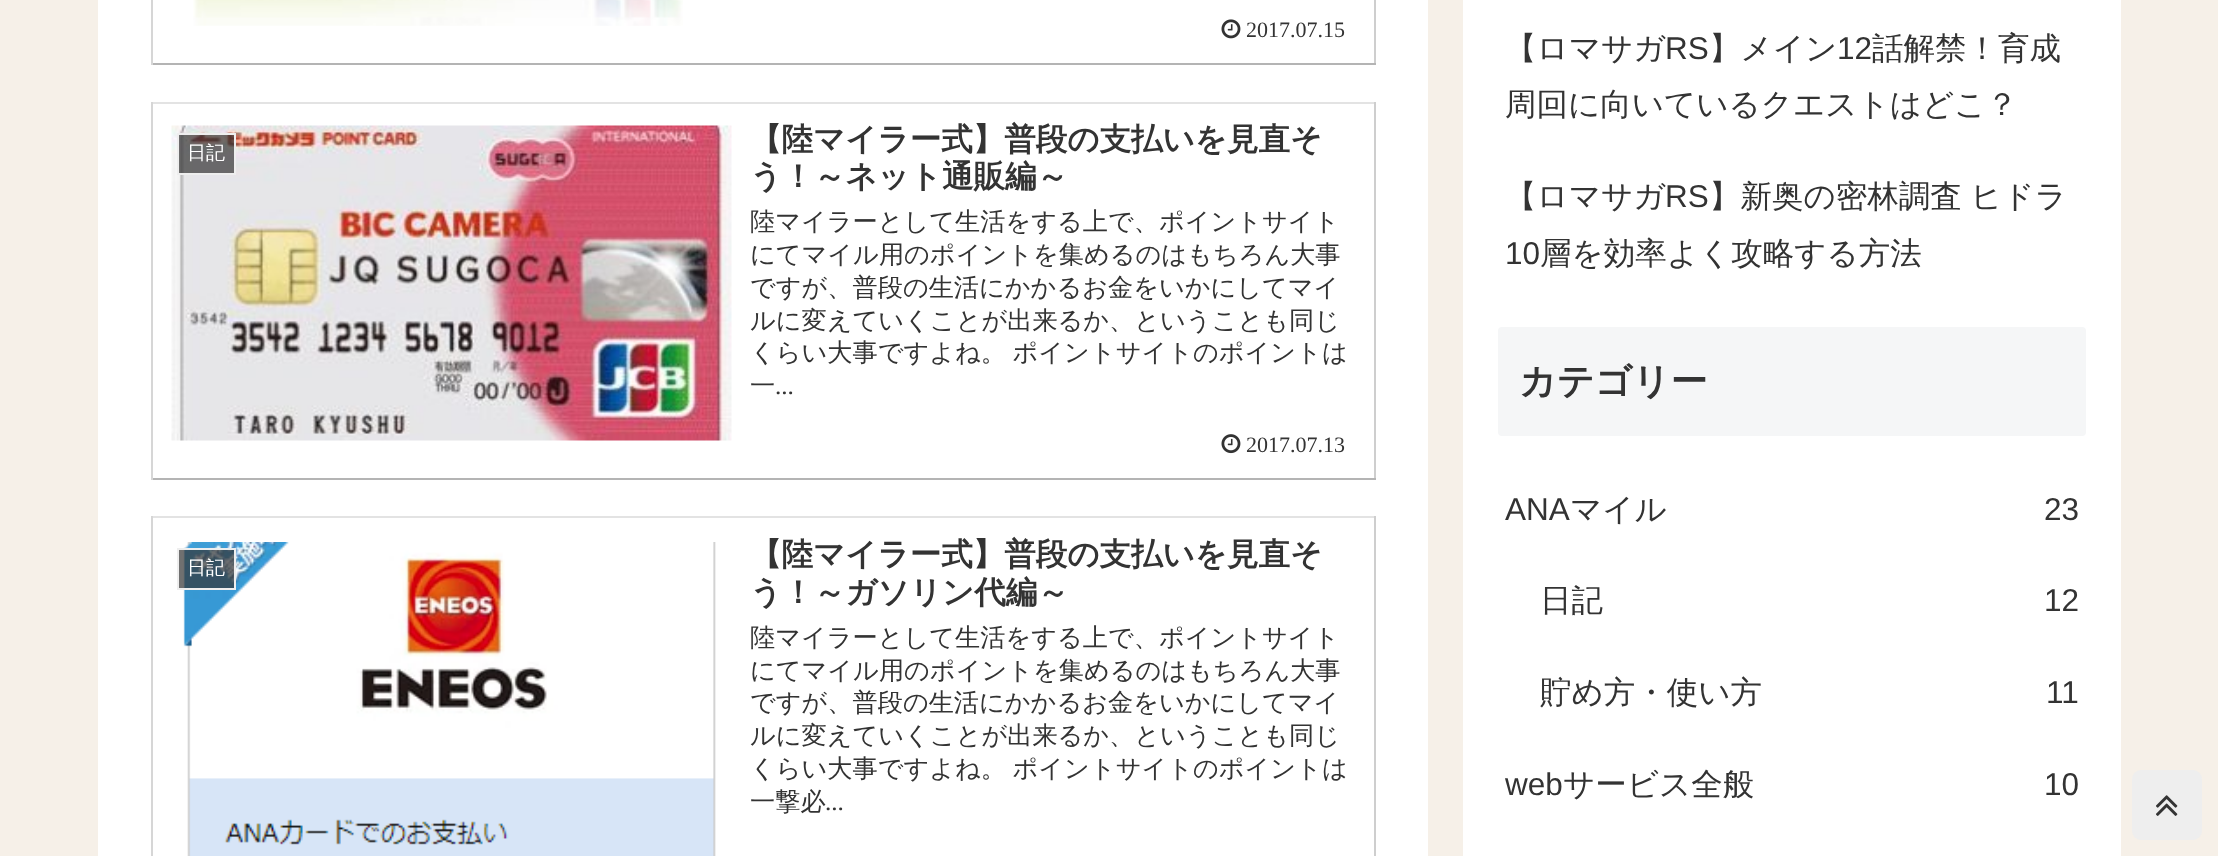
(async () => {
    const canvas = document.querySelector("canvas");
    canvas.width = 2218;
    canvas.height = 856;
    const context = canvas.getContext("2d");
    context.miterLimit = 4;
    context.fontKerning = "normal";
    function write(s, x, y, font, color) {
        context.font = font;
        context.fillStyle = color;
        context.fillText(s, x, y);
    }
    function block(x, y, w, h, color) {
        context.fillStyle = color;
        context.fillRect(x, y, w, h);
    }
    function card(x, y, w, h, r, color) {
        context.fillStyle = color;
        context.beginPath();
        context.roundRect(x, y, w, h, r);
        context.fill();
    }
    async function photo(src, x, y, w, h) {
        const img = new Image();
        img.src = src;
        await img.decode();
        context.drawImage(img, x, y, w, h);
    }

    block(0, 0, 2218, 856, "rgb(246, 240, 232)");
    block(98, 0, 1330, 856, "rgb(255, 255, 255)");
    block(1374, 0, 2, 65, "rgb(206, 206, 206)");
    block(151, 63, 1225, 2, "rgb(180, 180, 180)");
    block(151, 0, 2, 65, "rgb(214, 214, 214)");
    await photo("media/1.png", 193, 0, 490, 26);
    await photo("media/2.png", 1221, 19, 20, 20);
    write("2017.07.15", 1246, 37, "22px Liberation Serif", "rgb(51, 51, 51)");
    block(151, 102, 1225, 2, "rgb(227, 227, 227)");
    block(1374, 102, 2, 378, "rgb(206, 206, 206)");
    block(151, 478, 1225, 2, "rgb(180, 180, 180)");
    block(151, 102, 2, 378, "rgb(214, 214, 214)");
    await photo("media/3.png", 171, 125, 561, 316);
    context.fillStyle = "rgba(51, 51, 51, 0.7)";
    context.beginPath();
    context.rect(178, 134, 57, 40);
    context.fill();
    context.strokeStyle = "rgb(238, 238, 238)";
    context.lineWidth = 2;
    context.stroke();
    write("日記", 187, 159, "500 19px WenQuanYi Zen Hei", "rgb(255, 255, 255)");
    write("【陸マイラー式】普段の支払いを見直そ", 750, 150, "bold 31.5px WenQuanYi Zen Hei", "rgb(51, 51, 51)");
    write("う！～ネット通販編～", 750, 187, "bold 31.5px WenQuanYi Zen Hei", "rgb(51, 51, 51)");
    write("陸マイラーとして生活をする上で、ポイントサイト", 750, 230, "500 25.2px WenQuanYi Zen Hei", "rgb(51, 51, 51)");
    write("にてマイル用のポイントを集めるのはもちろん大事", 750, 263, "500 25.2px WenQuanYi Zen Hei", "rgb(51, 51, 51)");
    write("ですが、普段の生活にかかるお金をいかにしてマイ", 750, 296, "500 25.2px WenQuanYi Zen Hei", "rgb(51, 51, 51)");
    write("ルに変えていくことが出来るか、ということも同じ", 750, 329, "500 25.2px WenQuanYi Zen Hei", "rgb(51, 51, 51)");
    context.wordSpacing = "-1px";
    write("くらい大事ですよね。 ポイントサイトのポイントは", 750, 361, "500 25.2px WenQuanYi Zen Hei", "rgb(51, 51, 51)");
    context.wordSpacing = "0px";
    write("一", 750, 394, "500 25.2px WenQuanYi Zen Hei", "rgb(51, 51, 51)");
    write("...", 775, 394, "25.2px Liberation Serif", "rgb(51, 51, 51)");
    await photo("media/4.png", 1221, 434, 20, 20);
    write("2017.07.13", 1246, 452, "22px Liberation Serif", "rgb(51, 51, 51)");
    block(151, 516, 1225, 2, "rgb(227, 227, 227)");
    block(1374, 516, 2, 340, "rgb(206, 206, 206)");
    block(151, 516, 2, 340, "rgb(214, 214, 214)");
    await photo("media/5.png", 183, 542, 533, 314);
    context.fillStyle = "rgba(51, 51, 51, 0.7)";
    context.beginPath();
    context.rect(178, 549, 57, 40);
    context.fill();
    context.stroke();
    write("日記", 187, 574, "500 19px WenQuanYi Zen Hei", "rgb(255, 255, 255)");
    write("【陸マイラー式】普段の支払いを見直そ", 750, 565, "bold 31.5px WenQuanYi Zen Hei", "rgb(51, 51, 51)");
    write("う！～ガソリン代編～", 750, 603, "bold 31.5px WenQuanYi Zen Hei", "rgb(51, 51, 51)");
    write("陸マイラーとして生活をする上で、ポイントサイト", 750, 646, "500 25.2px WenQuanYi Zen Hei", "rgb(51, 51, 51)");
    write("にてマイル用のポイントを集めるのはもちろん大事", 750, 679, "500 25.2px WenQuanYi Zen Hei", "rgb(51, 51, 51)");
    write("ですが、普段の生活にかかるお金をいかにしてマイ", 750, 711, "500 25.2px WenQuanYi Zen Hei", "rgb(51, 51, 51)");
    write("ルに変えていくことが出来るか、ということも同じ", 750, 744, "500 25.2px WenQuanYi Zen Hei", "rgb(51, 51, 51)");
    context.wordSpacing = "-1px";
    write("くらい大事ですよね。 ポイントサイトのポイントは", 750, 777, "500 25.2px WenQuanYi Zen Hei", "rgb(51, 51, 51)");
    context.wordSpacing = "0px";
    write("一撃必", 750, 810, "500 25.2px WenQuanYi Zen Hei", "rgb(51, 51, 51)");
    write("...", 825, 810, "25.2px Liberation Serif", "rgb(51, 51, 51)");
    block(1463, 0, 658, 856, "rgb(255, 255, 255)");
    write("【ロマサガ", 1505, 59, "500 31.5px WenQuanYi Zen Hei", "rgb(51, 51, 51)");
    write("RS", 1665, 59, "31.5px Liberation Sans", "rgb(51, 51, 51)");
    write("】メイン", 1709, 59, "500 31.5px WenQuanYi Zen Hei", "rgb(51, 51, 51)");
    write("12", 1837, 59, "31.5px Liberation Sans", "rgb(51, 51, 51)");
    write("話解禁！育成", 1872, 59, "500 31.5px WenQuanYi Zen Hei", "rgb(51, 51, 51)");
    write("周回に向いているクエストはどこ？", 1505, 115, "500 31.5px WenQuanYi Zen Hei", "rgb(51, 51, 51)");
    write("【ロマサガ", 1505, 207, "500 31.5px WenQuanYi Zen Hei", "rgb(51, 51, 51)");
    write("RS", 1665, 207, "31.5px Liberation Sans", "rgb(51, 51, 51)");
    context.wordSpacing = "-1px";
    write("】新奥の密林調査 ヒドラ", 1709, 207, "500 31.5px WenQuanYi Zen Hei", "rgb(51, 51, 51)");
    context.wordSpacing = "0px";
    write("10", 1505, 264, "31.5px Liberation Sans", "rgb(51, 51, 51)");
    write("層を効率よく攻略する方法", 1540, 264, "500 31.5px WenQuanYi Zen Hei", "rgb(51, 51, 51)");
    card(1498, 327, 588, 109, 4, "rgb(245, 246, 247)");
    write("カテゴリー", 1519, 394, "bold 37px WenQuanYi Zen Hei", "rgb(51, 51, 51)");
    write("ANA", 1505, 520, "31.5px Liberation Sans", "rgb(51, 51, 51)");
    write("マイル", 1570, 520, "500 31.5px WenQuanYi Zen Hei", "rgb(51, 51, 51)");
    write("23", 2044, 520, "31.5px Liberation Sans", "rgb(51, 51, 51)");
    write("日記", 1540, 611, "500 31.5px WenQuanYi Zen Hei", "rgb(51, 51, 51)");
    write("12", 2044, 611, "31.5px Liberation Sans", "rgb(51, 51, 51)");
    write("貯め方・使い方", 1540, 703, "500 31.5px WenQuanYi Zen Hei", "rgb(51, 51, 51)");
    write("11", 2046, 703, "31.5px Liberation Sans", "rgb(51, 51, 51)");
    write("web", 1505, 795, "31.5px Liberation Sans", "rgb(51, 51, 51)");
    write("サービス全般", 1563, 795, "500 31.5px WenQuanYi Zen Hei", "rgb(51, 51, 51)");
    write("10", 2044, 795, "31.5px Liberation Sans", "rgb(51, 51, 51)");
    card(2132, 770, 70, 70, 9, "rgb(238, 238, 238)");
    await photo("media/6.png", 2156, 795, 22, 21);
})();
